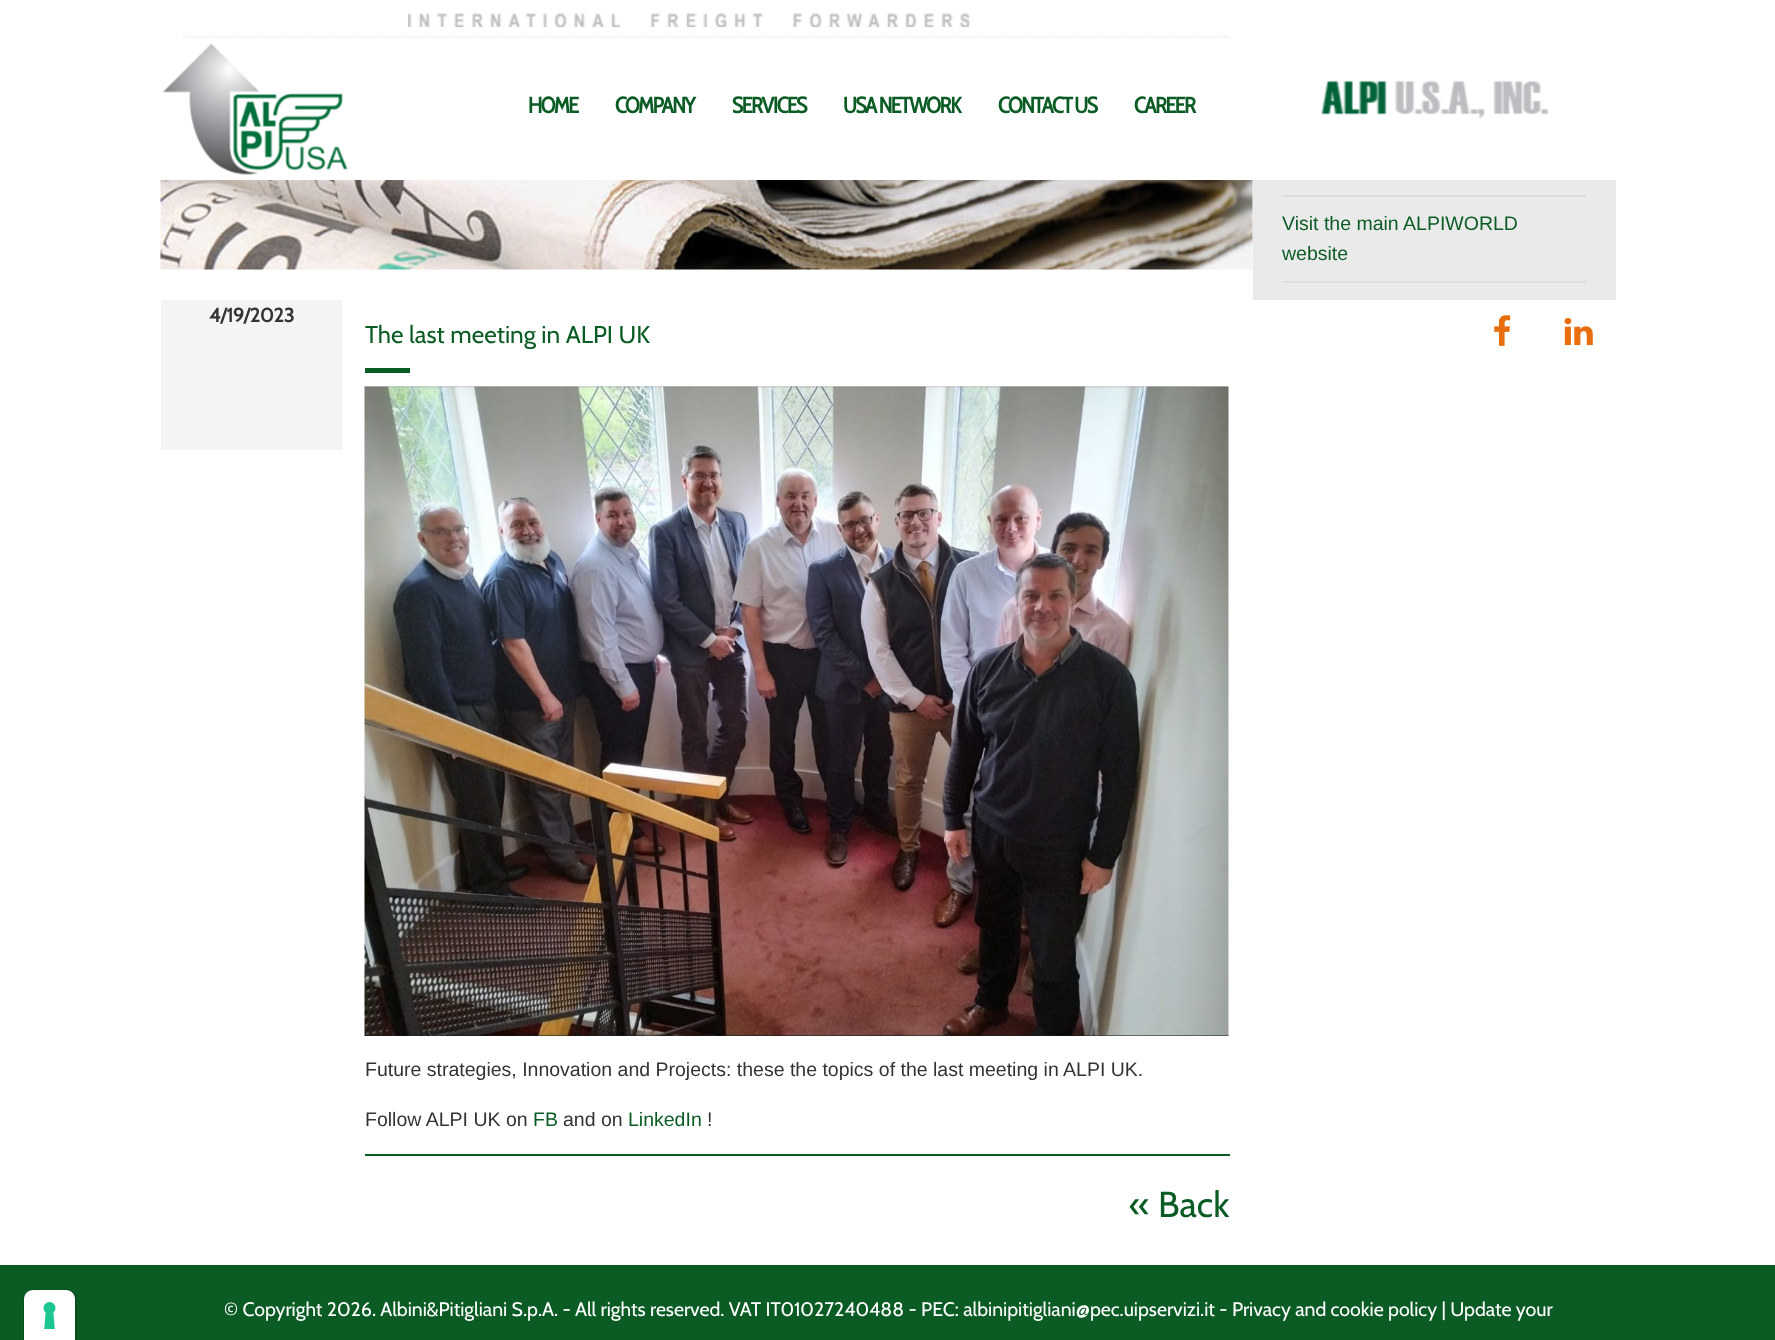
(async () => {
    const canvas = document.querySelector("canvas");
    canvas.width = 1775;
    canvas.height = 1340;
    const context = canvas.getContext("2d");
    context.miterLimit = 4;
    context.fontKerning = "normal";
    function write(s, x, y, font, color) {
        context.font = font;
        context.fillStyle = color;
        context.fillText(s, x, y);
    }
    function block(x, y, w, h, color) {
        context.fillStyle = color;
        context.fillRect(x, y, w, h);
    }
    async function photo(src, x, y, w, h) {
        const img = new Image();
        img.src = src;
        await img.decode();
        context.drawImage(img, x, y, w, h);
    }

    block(0, 0, 1775, 1340, "rgb(255, 255, 255)");
    block(0, 1265, 1775, 75, "rgb(11, 92, 36)");
    context.beginPath();
    context.moveTo(34, 1290);
    context.lineTo(66, 1290);
    context.bezierCurveTo(71.5, 1290, 76, 1294.5, 76, 1300);
    context.lineTo(76, 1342);
    context.lineTo(24, 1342);
    context.lineTo(24, 1300);
    context.bezierCurveTo(24, 1294.5, 28.5, 1290, 34, 1290);
    context.closePath();
    context.strokeStyle = "rgb(9, 78, 31)";
    context.lineWidth = 2;
    context.stroke();
    context.fillStyle = "rgb(255, 255, 255)";
    context.beginPath();
    context.moveTo(33, 1290);
    context.lineTo(66, 1290);
    context.bezierCurveTo(71, 1290, 75, 1294, 75, 1299);
    context.lineTo(75, 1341);
    context.lineTo(24, 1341);
    context.lineTo(24, 1299);
    context.bezierCurveTo(24, 1294, 28, 1290, 33, 1290);
    context.closePath();
    context.fill();
    await photo("media/1.png", 43, 1302, 13, 27);
    context.beginPath();
    context.moveTo(183, 37);
    context.lineTo(1230, 37);
    context.strokeStyle = "rgb(234, 234, 234)";
    context.lineWidth = 1.5;
    context.setLineDash([1.5, 1.5]);
    context.stroke();
    await photo("media/2.png", 408, 13, 562, 14);
    await photo("media/3.png", 163, 43, 185, 132);
    context.letterSpacing = "-1.5px";
    write("HOME", 528, 113, "bold 22.5px Cabin Condensed", "rgb(11, 92, 36)");
    write("COMPANY", 615, 113, "bold 22.5px Cabin Condensed", "rgb(11, 92, 36)");
    write("SERVICES", 732, 113, "bold 22.5px Cabin Condensed", "rgb(11, 92, 36)");
    write("USA NETWORK", 843, 113, "bold 22.5px Cabin Condensed", "rgb(11, 92, 36)");
    write("CONTACT US", 998, 113, "bold 22.5px Cabin Condensed", "rgb(11, 92, 36)");
    write("CAREER", 1134, 113, "bold 22.5px Cabin Condensed", "rgb(11, 92, 36)");
    await photo("media/4.png", 1321, 80, 228, 39);
    block(1253, 180, 363, 120, "rgb(234, 234, 234)");
    block(1283, 195, 303, 2, "rgb(221, 221, 221)");
    block(1283, 281, 303, 2, "rgb(221, 221, 221)");
    context.letterSpacing = "0px";
    write("Visit the main ALPIWORLD", 1282, 230, "19.5px Liberation Sans", "rgb(11, 92, 36)");
    write("website", 1282, 260, "19.5px Liberation Sans", "rgb(11, 92, 36)");
    await photo("media/5.png", 1494, 315, 17, 31);
    await photo("media/6.png", 1564, 318, 29, 27);
    await photo("media/7.png", 160, 180, 1093, 90);
    block(161, 300, 181, 150, "rgb(244, 244, 244)");
    write("4/19/2023", 209, 322, "bold 19.5px Cabin", "rgb(51, 51, 51)");
    write("The last meeting in ALPI UK", 365, 343, "24.4px Cabin", "rgb(11, 92, 36)");
    block(365, 368, 45, 5, "rgb(11, 92, 36)");
    await photo("media/8.png", 364, 386, 865, 650);
    write("Future strategies, Innovation and Projects: these the topics of the last meeting in ALPI UK.", 365, 1076, "19.5px Liberation Sans", "rgb(51, 51, 51)");
    write("Follow ALPI UK on", 365, 1126, "19.5px Liberation Sans", "rgb(51, 51, 51)");
    write("FB", 533, 1126, "19.5px Liberation Sans", "rgb(11, 92, 36)");
    write("and on", 563, 1126, "19.5px Liberation Sans", "rgb(51, 51, 51)");
    write("LinkedIn", 628, 1126, "19.5px Liberation Sans", "rgb(11, 92, 36)");
    write("!", 707, 1126, "19.5px Liberation Sans", "rgb(51, 51, 51)");
    block(365, 1154, 865, 2, "rgb(11, 92, 36)");
    write("« Back", 1129, 1217, "36px Cabin", "rgb(11, 92, 36)");
    write("© Copyright 2026. Albini&Pitigliani S.p.A. - All rights reserved. VAT IT01027240488 - PEC: albinipitigliani@pec.uipservizi.it - Privacy and cookie policy | Update your", 224, 1316, "19.5px Cabin", "rgb(255, 255, 255)");
})();
